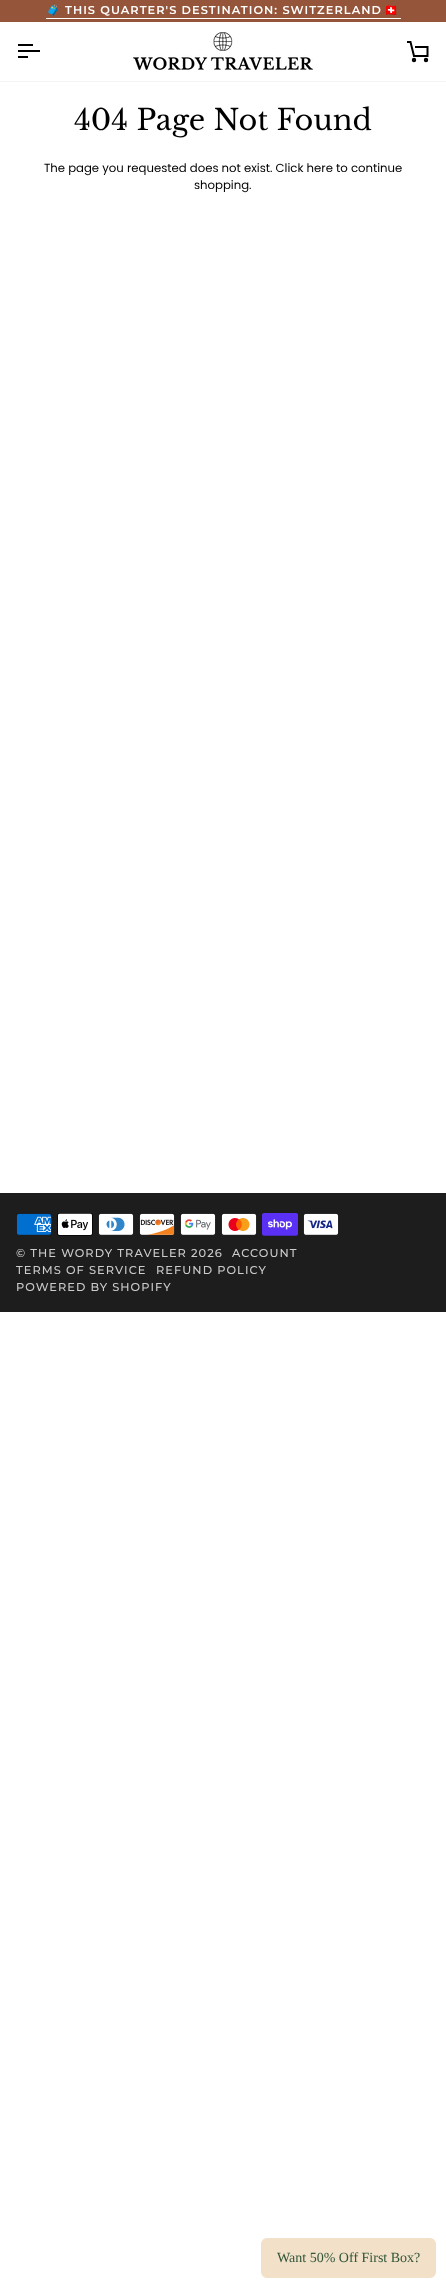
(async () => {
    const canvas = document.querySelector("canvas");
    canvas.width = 446;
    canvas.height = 2288;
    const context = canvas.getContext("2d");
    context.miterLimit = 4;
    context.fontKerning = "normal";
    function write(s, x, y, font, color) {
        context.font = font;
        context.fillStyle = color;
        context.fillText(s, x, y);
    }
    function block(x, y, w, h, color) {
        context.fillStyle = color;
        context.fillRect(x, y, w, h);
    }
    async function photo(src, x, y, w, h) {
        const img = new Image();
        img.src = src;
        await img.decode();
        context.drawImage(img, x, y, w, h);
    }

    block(0, 0, 446, 2288, "rgb(255, 255, 255)");
    block(0, 0, 446, 22, "rgb(148, 85, 58)");
    context.letterSpacing = "1.05px";
    write("🧳", 46, 14, "bold 11.4px Noto Color Emoji", "rgb(255, 255, 255)");
    write("THIS QUARTER'S DESTINATION: SWITZERLAND", 65, 14, "600 11.4px Montserrat", "rgb(255, 255, 255)");
    write("🇨🇭", 384, 14, "bold 11.4px Noto Color Emoji", "rgb(255, 255, 255)");
    block(46, 18, 355, 1, "rgb(255, 255, 255)");
    block(0, 81, 446, 1, "rgb(247, 245, 244)");
    context.beginPath();
    context.moveTo(32, 45);
    context.lineTo(19, 45);
    context.moveTo(39, 51);
    context.lineTo(19, 51);
    context.moveTo(27, 57);
    context.lineTo(19, 57);
    context.strokeStyle = "rgb(0, 0, 0)";
    context.lineWidth = 2;
    context.lineCap = "square";
    context.stroke();
    await photo("media/1.png", 133, 32, 180, 38);
    context.beginPath();
    context.moveTo(407, 42);
    context.lineTo(410.5, 42);
    context.lineTo(414, 56);
    context.lineTo(427.5, 56);
    context.lineTo(427.5, 47);
    context.lineTo(415, 47);
    context.lineCap = "butt";
    context.stroke();
    context.beginPath();
    context.arc(414, 60, 1.2, 0, Math.PI * 2);
    context.stroke();
    context.beginPath();
    context.arc(426, 60, 1.2, 0, Math.PI * 2);
    context.stroke();
    context.letterSpacing = "0px";
    write("404 Page Not Found", 74, 130, "28.75px Libre Baskerville", "rgb(0, 0, 0)");
    write("The page you requested does not exist. Click here to continue", 44, 172, "11.7px Poppins", "rgb(0, 0, 0)");
    write("shopping.", 194, 189, "11.7px Poppins", "rgb(0, 0, 0)");
    block(0, 1193, 446, 119, "rgb(29, 29, 29)");
    await photo("media/2.png", 16, 1213, 36, 22);
    await photo("media/3.png", 57, 1213, 36, 23);
    await photo("media/4.png", 98, 1213, 36, 22);
    await photo("media/5.png", 139, 1213, 36, 22);
    await photo("media/6.png", 180, 1213, 36, 22);
    await photo("media/7.png", 221, 1213, 36, 22);
    await photo("media/8.png", 262, 1213, 36, 23);
    await photo("media/9.png", 303, 1213, 36, 22);
    context.letterSpacing = "1.05px";
    write("© THE WORDY TRAVELER", 16, 1257, "500 11.4px Montserrat", "rgb(204, 204, 204)");
    write("2026", 191, 1257, "500 11.4px Montserrat", "rgb(204, 204, 204)");
    write("ACCOUNT", 232, 1257, "500 11.4px Montserrat", "rgb(204, 204, 204)");
    write("TERMS OF SERVICE", 16, 1274, "500 11.4px Montserrat", "rgb(204, 204, 204)");
    write("REFUND POLICY", 156, 1274, "500 11.4px Montserrat", "rgb(204, 204, 204)");
    write("POWERED BY SHOPIFY", 16, 1291, "500 11.4px Montserrat", "rgb(204, 204, 204)");
    context.fillStyle = "rgb(242, 224, 201)";
    context.beginPath();
    context.roundRect(260, 2237, 177, 42, 7);
    context.fill();
    context.strokeStyle = "rgb(255, 255, 255)";
    context.stroke();
    context.letterSpacing = "0px";
    write("Want 50% Off First Box?", 277, 2262, "14px Liberation Serif", "rgb(48, 86, 57)");
})();
